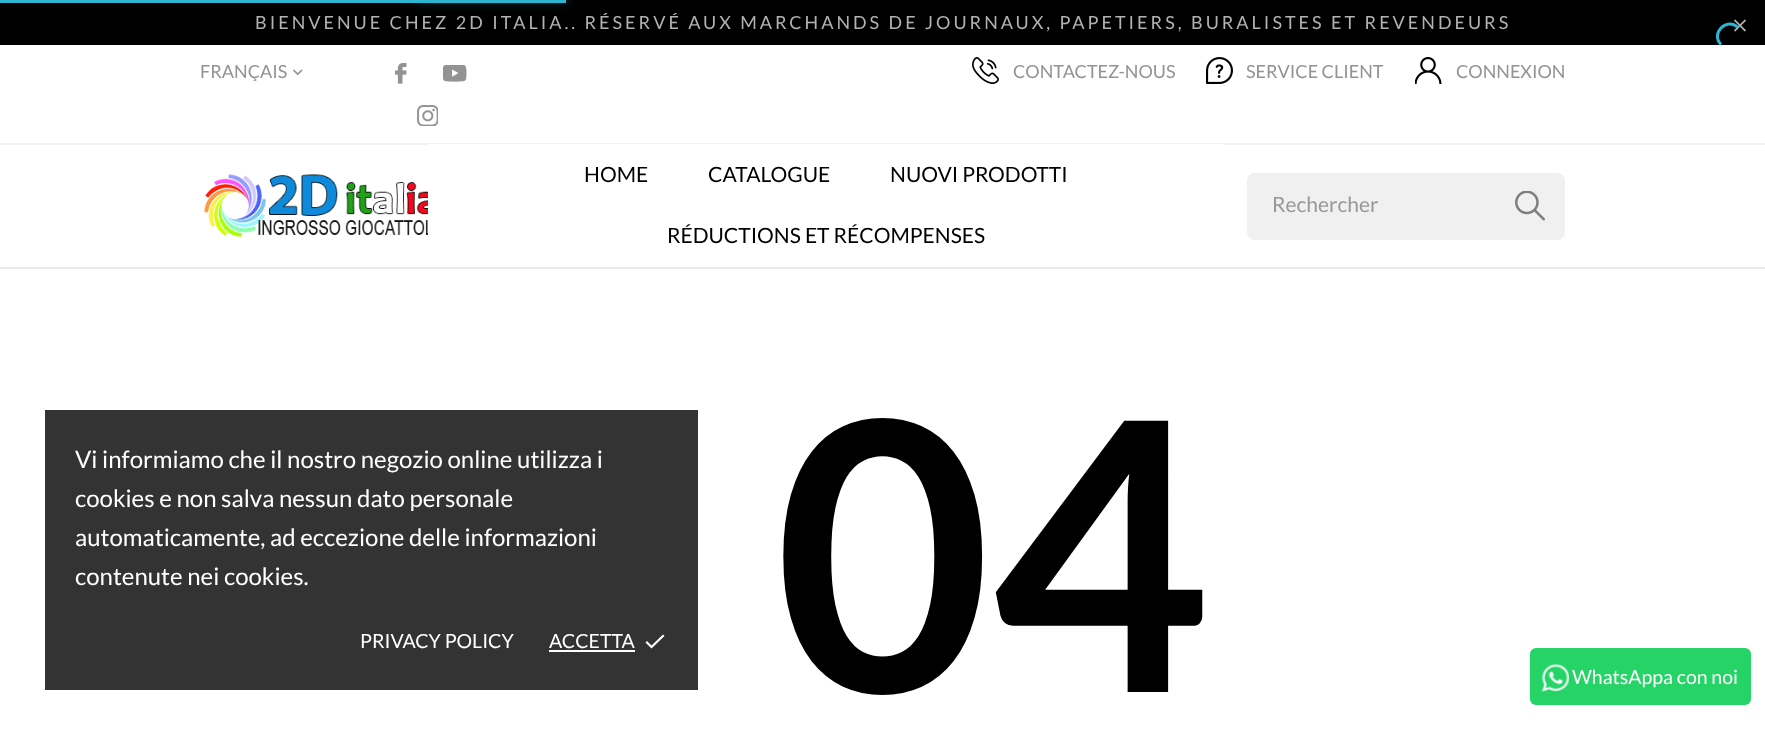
(async () => {
    const canvas = document.querySelector("canvas");
    canvas.width = 1765;
    canvas.height = 734;
    const context = canvas.getContext("2d");
    context.miterLimit = 4;
    context.fontKerning = "normal";
    function write(s, x, y, font, color) {
        context.font = font;
        context.fillStyle = color;
        context.fillText(s, x, y);
    }
    function block(x, y, w, h, color) {
        context.fillStyle = color;
        context.fillRect(x, y, w, h);
    }
    function card(x, y, w, h, r, color) {
        context.fillStyle = color;
        context.beginPath();
        context.roundRect(x, y, w, h, r);
        context.fill();
    }
    async function photo(src, x, y, w, h) {
        const img = new Image();
        img.src = src;
        await img.decode();
        context.drawImage(img, x, y, w, h);
    }

    block(0, 0, 1765, 734, "rgb(255, 255, 255)");
    block(0, 0, 1765, 45, "rgb(0, 0, 0)");
    block(0, 0, 566, 3, "rgb(47, 181, 210)");
    context.filter = "blur(4px)";
    context.beginPath();
    context.rect(416, -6, 150, 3);
    context.fill();
    context.filter = "none";
    context.filter = "blur(7.5px)";
    context.beginPath();
    context.rect(416, -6, 150, 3);
    context.fill();
    context.filter = "none";
    await photo("media/1.png", 1734, 19, 12, 13);
    context.beginPath();
    context.moveTo(1721, 44.5);
    context.bezierCurveTo(1710, 33.5, 1727, 16.5, 1738, 27.5);
    context.strokeStyle = "rgb(47, 181, 210)";
    context.lineWidth = 3;
    context.stroke();
    block(0, 267, 1765, 2, "rgb(235, 234, 234)");
    context.letterSpacing = "3px";
    write("BIENVENUE CHEZ 2D ITALIA.. RÉSERVÉ AUX MARCHANDS DE JOURNAUX, PAPETIERS, BURALISTES ET REVENDEURS", 255, 29, "18px Lato", "rgb(178, 178, 178)");
    block(0, 143, 1765, 2, "rgb(242, 242, 242)");
    context.letterSpacing = "0px";
    write("FRANÇAIS", 200, 78, "18px Lato", "rgb(147, 147, 147)");
    await photo("media/2.png", 293, 69, 10, 7);
    await photo("media/3.png", 395, 63, 12, 21);
    await photo("media/4.png", 443, 65, 24, 17);
    await photo("media/5.png", 417, 105, 21, 21);
    await photo("media/6.png", 972, 57, 27, 27);
    write("CONTACTEZ-NOUS", 1013, 78, "18px Lato", "rgb(147, 147, 147)");
    await photo("media/7.png", 1206, 57, 27, 27);
    write("SERVICE CLIENT", 1246, 78, "18px Lato", "rgb(147, 147, 147)");
    await photo("media/8.png", 1415, 57, 27, 27);
    write("CONNEXION", 1456, 78, "18px Lato", "rgb(147, 147, 147)");
    await photo("media/9.png", 204, 174, 224, 63);
    block(428, 144, 796, 1, "rgb(255, 255, 255)");
    write("HOME", 584, 182, "21px Lato", "rgb(0, 0, 0)");
    write("CATALOGUE", 708, 182, "21px Lato", "rgb(0, 0, 0)");
    write("NUOVI PRODOTTI", 890, 182, "21px Lato", "rgb(0, 0, 0)");
    write("RÉDUCTIONS ET RÉCOMPENSES", 667, 243, "21px Lato", "rgb(0, 0, 0)");
    card(1247, 173, 318, 67, 8, "rgb(240, 240, 240)");
    write("Rechercher", 1272, 212, "21px Lato", "rgb(151, 152, 154)");
    await photo("media/10.png", 1515, 191, 30, 30);
    write("04", 774, 692, "bold 375px Lato", "rgb(0, 0, 0)");
    block(45, 410, 653, 280, "rgba(0, 0, 0, 0.8)");
    write("Vi informiamo che il nostro negozio online utilizza i", 75, 468, "24px Lato", "rgb(255, 255, 255)");
    write("cookies e non salva nessun dato personale", 75, 507, "24px Lato", "rgb(255, 255, 255)");
    write("automaticamente, ad eccezione delle informazioni", 75, 546, "24px Lato", "rgb(255, 255, 255)");
    write("contenute nei cookies.", 75, 585, "24px Lato", "rgb(255, 255, 255)");
    write("PRIVACY POLICY", 360, 648, "19.5px Lato", "rgb(255, 255, 255)");
    write("ACCETTA", 549, 648, "19.5px Lato", "rgb(255, 255, 255)");
    block(549, 650, 86, 2, "rgb(255, 255, 255)");
    context.beginPath();
    context.moveTo(651.5, 645.5);
    context.lineTo(663, 634.5);
    context.lineTo(664.5, 636);
    context.lineTo(651.5, 648.5);
    context.lineTo(645.5, 642.5);
    context.lineTo(647, 641);
    context.closePath();
    context.fill();
    card(1530, 648, 221, 57, 6, "rgb(37, 211, 102)");
    await photo("media/11.png", 1541, 664, 28, 28);
    write("WhatsAppa con noi", 1572, 684, "19.5px Lato", "rgb(255, 255, 255)");
})();
